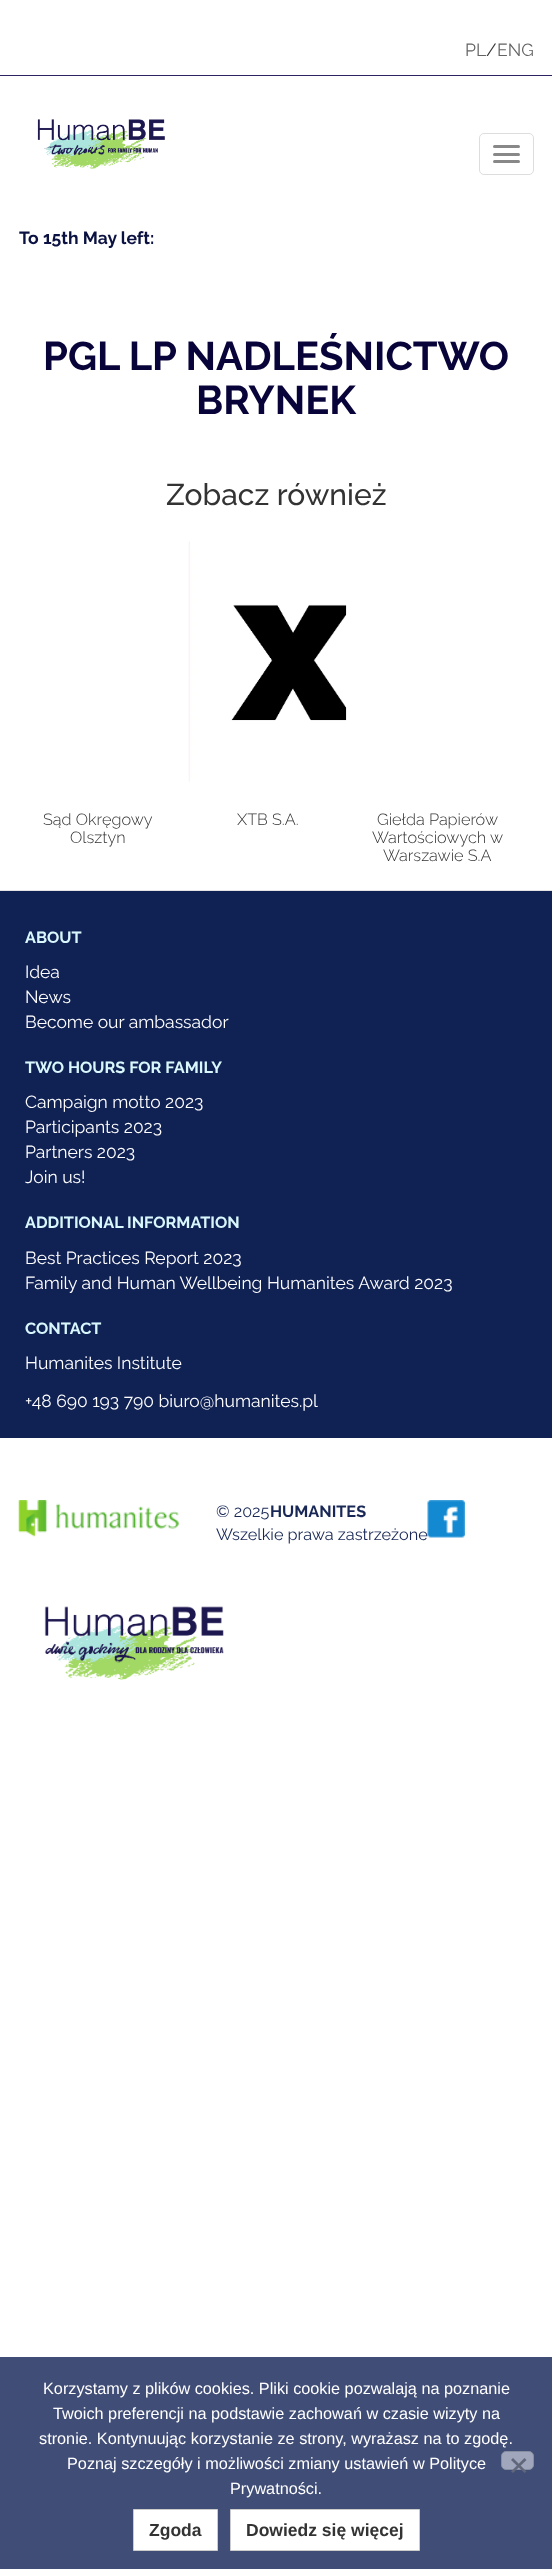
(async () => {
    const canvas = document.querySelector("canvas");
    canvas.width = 552;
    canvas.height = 2569;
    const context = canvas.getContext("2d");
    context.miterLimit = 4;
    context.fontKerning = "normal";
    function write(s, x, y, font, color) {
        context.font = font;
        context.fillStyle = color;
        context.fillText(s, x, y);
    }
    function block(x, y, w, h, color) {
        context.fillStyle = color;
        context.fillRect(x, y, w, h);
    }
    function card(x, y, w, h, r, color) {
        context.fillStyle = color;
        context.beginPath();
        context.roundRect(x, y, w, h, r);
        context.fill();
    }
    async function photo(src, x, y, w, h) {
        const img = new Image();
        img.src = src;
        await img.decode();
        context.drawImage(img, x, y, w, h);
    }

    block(0, 0, 552, 2569, "rgb(255, 255, 255)");
    block(0, 75, 552, 1, "rgb(44, 35, 99)");
    write("PL", 465, 56, "17.5px Raleway", "rgb(100, 100, 100)");
    write("/", 486, 56, "17.5px Raleway", "rgb(51, 51, 51)");
    write("ENG", 497, 56, "17.5px Raleway", "rgb(100, 100, 100)");
    await photo("media/1.png", 37, 119, 128, 50);
    context.beginPath();
    context.roundRect(479.5, 133.5, 54, 41, 4.5);
    context.strokeStyle = "rgb(221, 221, 221)";
    context.stroke();
    card(493, 145, 27, 3, 1.5, "rgb(136, 136, 136)");
    card(493, 153, 27, 3, 1.5, "rgb(136, 136, 136)");
    card(493, 160, 27, 3, 1.5, "rgb(136, 136, 136)");
    write("To 15th May left:", 19, 244, "bold 17.5px Raleway", "rgb(11, 18, 65)");
    write("PGL LP NADLEŚNICTWO", 43, 370, "bold 40px Raleway", "rgb(8, 4, 57)");
    write("BRYNEK", 196, 414, "bold 40px Raleway", "rgb(8, 4, 57)");
    write("Zobacz również", 166, 505, "500 30px Raleway", "rgb(51, 51, 51)");
    write("Sąd Okręgowy", 43, 825, "300 16.25px Raleway", "rgb(51, 51, 51)");
    write("Olsztyn", 70, 843, "300 16.25px Raleway", "rgb(51, 51, 51)");
    await photo("media/2.png", 188, 541, 159, 242);
    write("XTB S.A.", 237, 825, "300 16.25px Raleway", "rgb(51, 51, 51)");
    write("Giełda Papierów", 377, 825, "300 16.25px Raleway", "rgb(51, 51, 51)");
    write("Wartościowych w", 372, 843, "300 16.25px Raleway", "rgb(51, 51, 51)");
    write("Warszawie S.A", 383, 861, "300 16.25px Raleway", "rgb(51, 51, 51)");
    block(0, 891, 552, 547, "rgb(16, 33, 84)");
    block(0, 890, 552, 1, "rgb(229, 229, 229)");
    write("ABOUT", 25, 943, "bold 16.25px Raleway", "rgb(217, 248, 253)");
    write("Idea", 25, 978, "17.5px Raleway", "rgb(255, 255, 255)");
    write("News", 25, 1003, "17.5px Raleway", "rgb(255, 255, 255)");
    write("Become our ambassador", 25, 1028, "17.5px Raleway", "rgb(255, 255, 255)");
    write("TWO HOURS FOR FAMILY", 25, 1073, "bold 16.25px Raleway", "rgb(217, 248, 253)");
    write("Campaign motto 2023", 25, 1108, "17.5px Raleway", "rgb(255, 255, 255)");
    write("Participants 2023", 25, 1133, "17.5px Raleway", "rgb(255, 255, 255)");
    write("Partners 2023", 25, 1158, "17.5px Raleway", "rgb(255, 255, 255)");
    write("Join us!", 25, 1183, "17.5px Raleway", "rgb(255, 255, 255)");
    write("ADDITIONAL INFORMATION", 25, 1228, "bold 16.25px Raleway", "rgb(217, 248, 253)");
    write("Best Practices Report 2023", 25, 1264, "17.5px Raleway", "rgb(255, 255, 255)");
    write("Family and Human Wellbeing Humanites Award 2023", 25, 1289, "17.5px Raleway", "rgb(255, 255, 255)");
    write("CONTACT", 25, 1334, "bold 16.25px Raleway", "rgb(217, 248, 253)");
    write("Humanites Institute", 25, 1369, "17.5px Raleway", "rgb(255, 255, 255)");
    write("+48 690 193 790 biuro@humanites.pl", 25, 1407, "17.5px Raleway", "rgb(255, 255, 255)");
    await photo("media/3.png", 18, 1500, 161, 37);
    write("© 2025", 216, 1517, "16.25px Raleway", "rgb(24, 39, 85)");
    write("HUMANITES", 270, 1517, "bold 16.25px Raleway", "rgb(24, 39, 85)");
    write("Wszelkie prawa zastrzeżone", 216, 1540, "16.25px Raleway", "rgb(24, 39, 85)");
    await photo("media/4.png", 427, 1500, 38, 38);
    await photo("media/5.png", 44, 1606, 180, 74);
    block(0, 2357, 552, 212, "rgb(64, 77, 118)");
    write("Korzystamy z plików cookies. Pliki cookie pozwalają na poznanie", 43, 2394, "16.25px Liberation Sans", "rgb(255, 255, 255)");
    write("Twoich preferencji na podstawie zachowań w czasie wizyty na", 53, 2419, "16.25px Liberation Sans", "rgb(255, 255, 255)");
    write("stronie. Kontynuując korzystanie ze strony, wyrażasz na to zgodę.", 39, 2444, "16.25px Liberation Sans", "rgb(255, 255, 255)");
    write("Poznaj szczegóły i możliwości zmiany ustawień w Polityce", 67, 2469, "16.25px Liberation Sans", "rgb(255, 255, 255)");
    write("Prywatności.", 230, 2494, "16.25px Liberation Sans", "rgb(255, 255, 255)");
    context.fillStyle = "rgb(160, 166, 187)";
    context.beginPath();
    context.roundRect(501.5, 2451.5, 32, 18, 4.5);
    context.fill();
    context.strokeStyle = "rgb(134, 141, 161)";
    context.stroke();
    context.fillStyle = "rgb(96, 103, 123)";
    context.beginPath();
    context.moveTo(524.5, 2458);
    context.lineTo(526.5, 2460);
    context.lineTo(513, 2473);
    context.lineTo(511, 2471.5);
    context.closePath();
    context.fill();
    context.beginPath();
    context.moveTo(511, 2460);
    context.lineTo(513, 2458);
    context.lineTo(526.5, 2471.5);
    context.lineTo(524.5, 2473);
    context.closePath();
    context.fill();
    context.fillStyle = "rgb(255, 255, 255)";
    context.beginPath();
    context.rect(133.5, 2509.5, 84, 41);
    context.fill();
    context.strokeStyle = "rgb(204, 204, 204)";
    context.stroke();
    write("Zgoda", 149, 2536, "bold 17.5px Liberation Sans", "rgb(51, 51, 51)");
    context.fillStyle = "rgb(255, 255, 255)";
    context.beginPath();
    context.rect(230.5, 2509.5, 189, 41);
    context.fill();
    context.stroke();
    write("Dowiedz się więcej", 246, 2536, "bold 17.5px Liberation Sans", "rgb(51, 51, 51)");
})();
